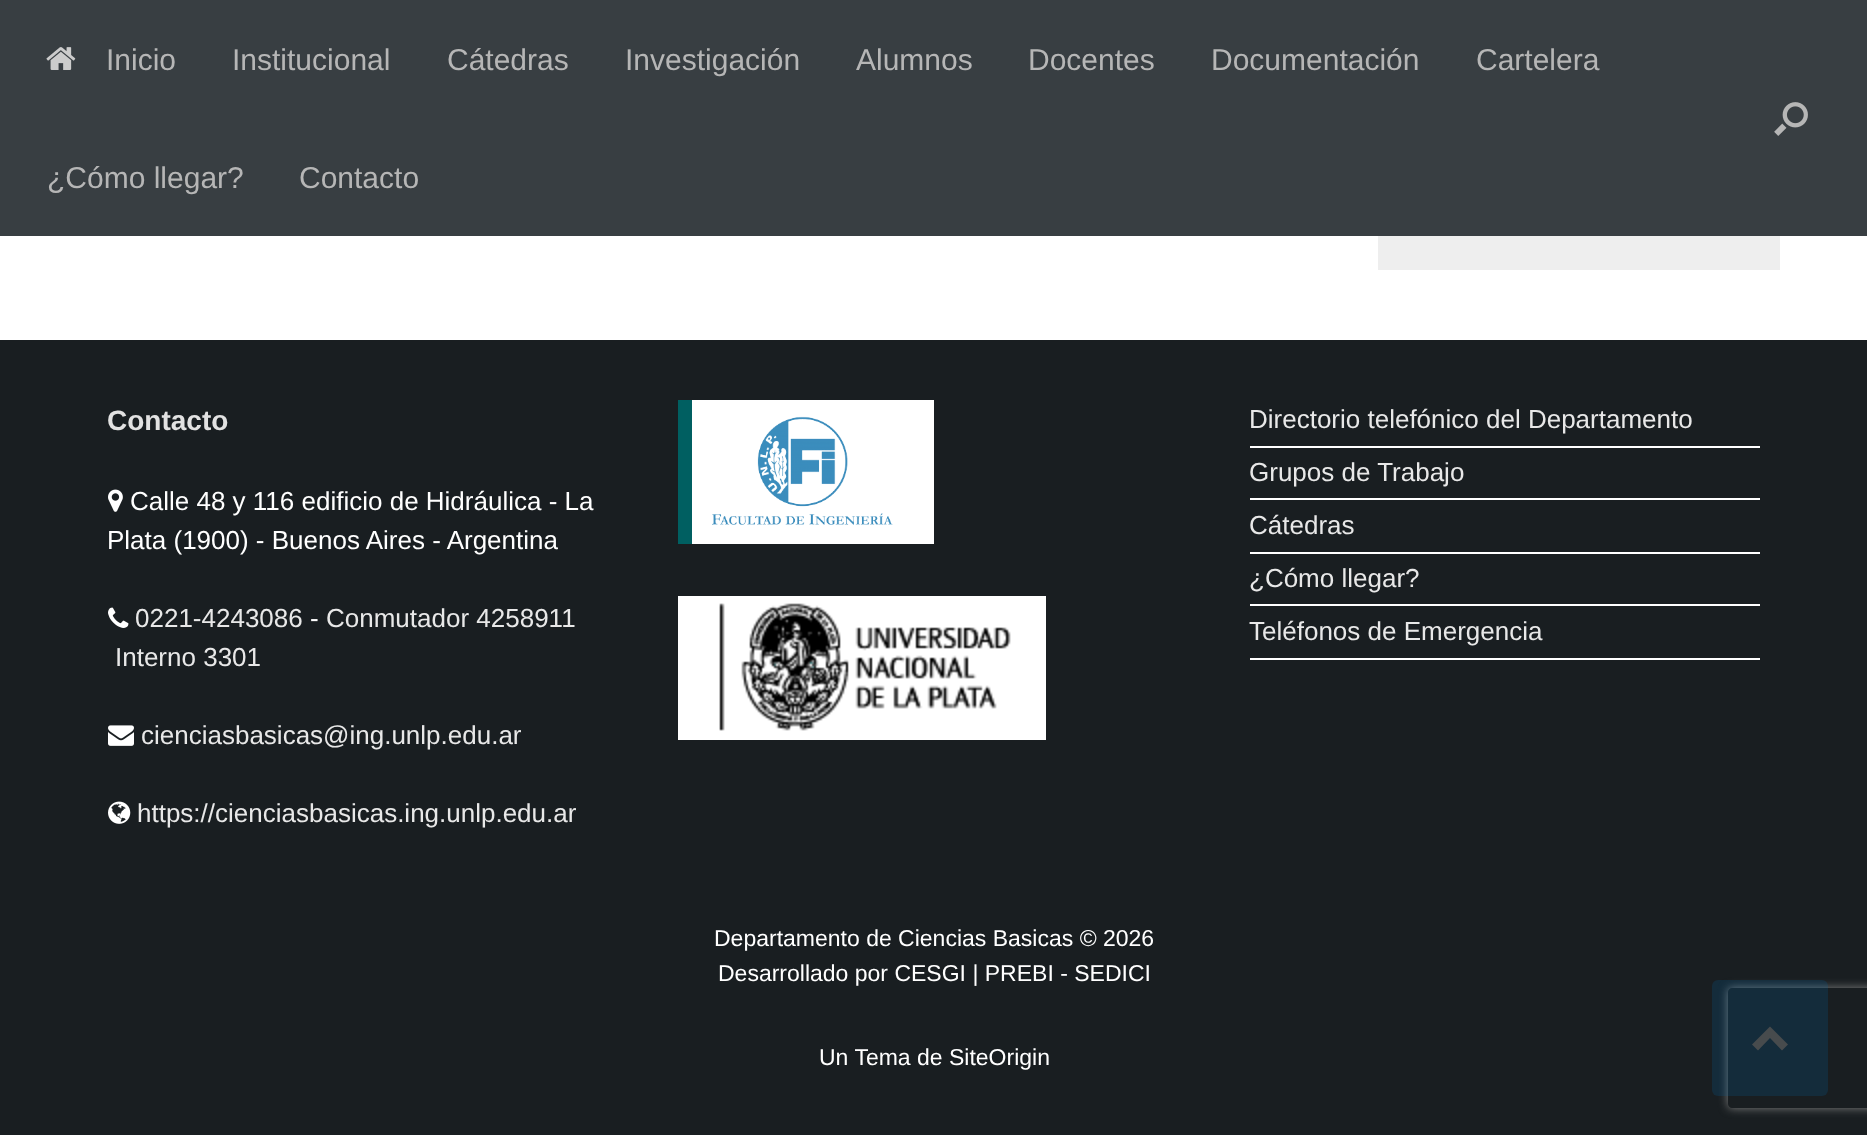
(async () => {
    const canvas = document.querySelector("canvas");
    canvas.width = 1867;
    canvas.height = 1135;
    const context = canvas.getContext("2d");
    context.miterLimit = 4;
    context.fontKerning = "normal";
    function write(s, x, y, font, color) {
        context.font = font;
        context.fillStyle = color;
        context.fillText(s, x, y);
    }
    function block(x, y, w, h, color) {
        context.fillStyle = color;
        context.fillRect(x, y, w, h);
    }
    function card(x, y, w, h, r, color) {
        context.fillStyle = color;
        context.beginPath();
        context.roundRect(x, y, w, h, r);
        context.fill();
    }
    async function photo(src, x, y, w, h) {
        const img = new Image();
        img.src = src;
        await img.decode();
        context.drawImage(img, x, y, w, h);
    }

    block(0, 0, 1867, 1135, "rgb(25, 30, 33)");
    block(0, 0, 1867, 236, "rgb(56, 62, 66)");
    await photo("media/1.png", 46, 47, 30, 23);
    write("Inicio", 106, 70, "30px Liberation Sans", "rgb(182, 182, 182)");
    write("Institucional", 232, 70, "30px Liberation Sans", "rgb(182, 182, 182)");
    write("Cátedras", 447, 70, "30px Liberation Sans", "rgb(182, 182, 182)");
    write("Investigación", 625, 70, "30px Liberation Sans", "rgb(182, 182, 182)");
    write("Alumnos", 856, 70, "30px Liberation Sans", "rgb(182, 182, 182)");
    write("Docentes", 1028, 70, "30px Liberation Sans", "rgb(182, 182, 182)");
    write("Documentación", 1211, 70, "30px Liberation Sans", "rgb(182, 182, 182)");
    write("Cartelera", 1476, 70, "30px Liberation Sans", "rgb(182, 182, 182)");
    write("¿Cómo llegar?", 47, 188, "30px Liberation Sans", "rgb(182, 182, 182)");
    write("Contacto", 299, 188, "30px Liberation Sans", "rgb(182, 182, 182)");
    await photo("media/2.png", 1774, 102, 34, 34);
    block(0, 236, 1867, 104, "rgb(255, 255, 255)");
    block(1378, 236, 402, 34, "rgb(238, 238, 238)");
    write("Contacto", 107, 430, "bold 28px Liberation Sans", "rgb(226, 226, 226)");
    await photo("media/3.png", 108, 489, 15, 23);
    write("Calle 48 y 116 edificio de Hidráulica - La", 130, 510, "26px Liberation Sans", "rgb(255, 255, 255)");
    write("Plata (1900) - Buenos Aires - Argentina", 107, 549, "26px Liberation Sans", "rgb(255, 255, 255)");
    await photo("media/4.png", 108, 607, 21, 21);
    write("0221-4243086", 135, 627, "26px Liberation Sans", "rgb(232, 232, 232)");
    write("-", 310, 627, "26px Liberation Sans", "rgb(255, 255, 255)");
    write("Conmutador 4258911", 326, 627, "26px Liberation Sans", "rgb(232, 232, 232)");
    write("Interno 3301", 115, 666, "26px Liberation Sans", "rgb(232, 232, 232)");
    await photo("media/5.png", 108, 725, 26, 21);
    write("cienciasbasicas@ing.unlp.edu.ar", 141, 744, "26px Liberation Sans", "rgb(232, 232, 232)");
    await photo("media/6.png", 108, 801, 23, 23);
    write("https://cienciasbasicas.ing.unlp.edu.ar", 137, 822, "26px Liberation Sans", "rgb(232, 232, 232)");
    block(678, 400, 14, 144, "rgb(0, 95, 97)");
    block(692, 400, 242, 144, "rgb(255, 255, 255)");
    await photo("media/7.png", 712, 416, 181, 109);
    block(678, 596, 368, 144, "rgb(255, 255, 255)");
    await photo("media/8.png", 719, 603, 292, 128);
    block(1250, 446, 510, 2, "rgb(255, 255, 255)");
    write("Directorio telefónico del Departamento", 1249, 428, "26px Liberation Sans", "rgb(232, 232, 232)");
    block(1250, 498, 510, 2, "rgb(255, 255, 255)");
    write("Grupos de Trabajo", 1249, 481, "26px Liberation Sans", "rgb(232, 232, 232)");
    block(1250, 552, 510, 2, "rgb(255, 255, 255)");
    write("Cátedras", 1249, 534, "26px Liberation Sans", "rgb(232, 232, 232)");
    block(1250, 604, 510, 2, "rgb(255, 255, 255)");
    write("¿Cómo llegar?", 1249, 587, "26px Liberation Sans", "rgb(232, 232, 232)");
    block(1250, 658, 510, 2, "rgb(255, 255, 255)");
    write("Teléfonos de Emergencia", 1249, 640, "26px Liberation Sans", "rgb(232, 232, 232)");
    write("Departamento de Ciencias Basicas © 2026", 714, 946, "23px Liberation Sans", "rgb(255, 255, 255)");
    write("Desarrollado por CESGI | PREBI - SEDICI", 718, 981, "23px Liberation Sans", "rgb(255, 255, 255)");
    write("Un Tema de SiteOrigin", 819, 1065, "23px Liberation Sans", "rgb(255, 255, 255)");
    context.save();
    context.beginPath();
    context.moveTo(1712, 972);
    context.lineTo(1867, 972);
    context.lineTo(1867, 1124);
    context.lineTo(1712, 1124);
    context.closePath();
    context.moveTo(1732, 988);
    context.lineTo(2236, 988);
    context.bezierCurveTo(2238, 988, 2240, 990, 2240, 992);
    context.lineTo(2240, 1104);
    context.bezierCurveTo(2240, 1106, 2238, 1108, 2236, 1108);
    context.lineTo(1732, 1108);
    context.bezierCurveTo(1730, 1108, 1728, 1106, 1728, 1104);
    context.lineTo(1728, 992);
    context.bezierCurveTo(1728, 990, 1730, 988, 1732, 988);
    context.closePath();
    context.clip("evenodd");
    context.fillStyle = "rgb(128, 128, 128)";
    context.filter = "blur(5px)";
    context.beginPath();
    context.roundRect(1728, 988, 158, 120, 4);
    context.fill();
    context.filter = "none";
    context.restore();
    card(1712, 980, 116, 116, 6, "rgba(0, 102, 164, 0.2)");
    context.fillStyle = "rgb(71, 75, 77)";
    context.beginPath();
    context.moveTo(1788, 1044.5);
    context.lineTo(1770, 1026.5);
    context.lineTo(1752, 1044.5);
    context.lineTo(1758, 1050.5);
    context.lineTo(1770, 1038);
    context.lineTo(1782, 1050.5);
    context.closePath();
    context.fill();
})();
